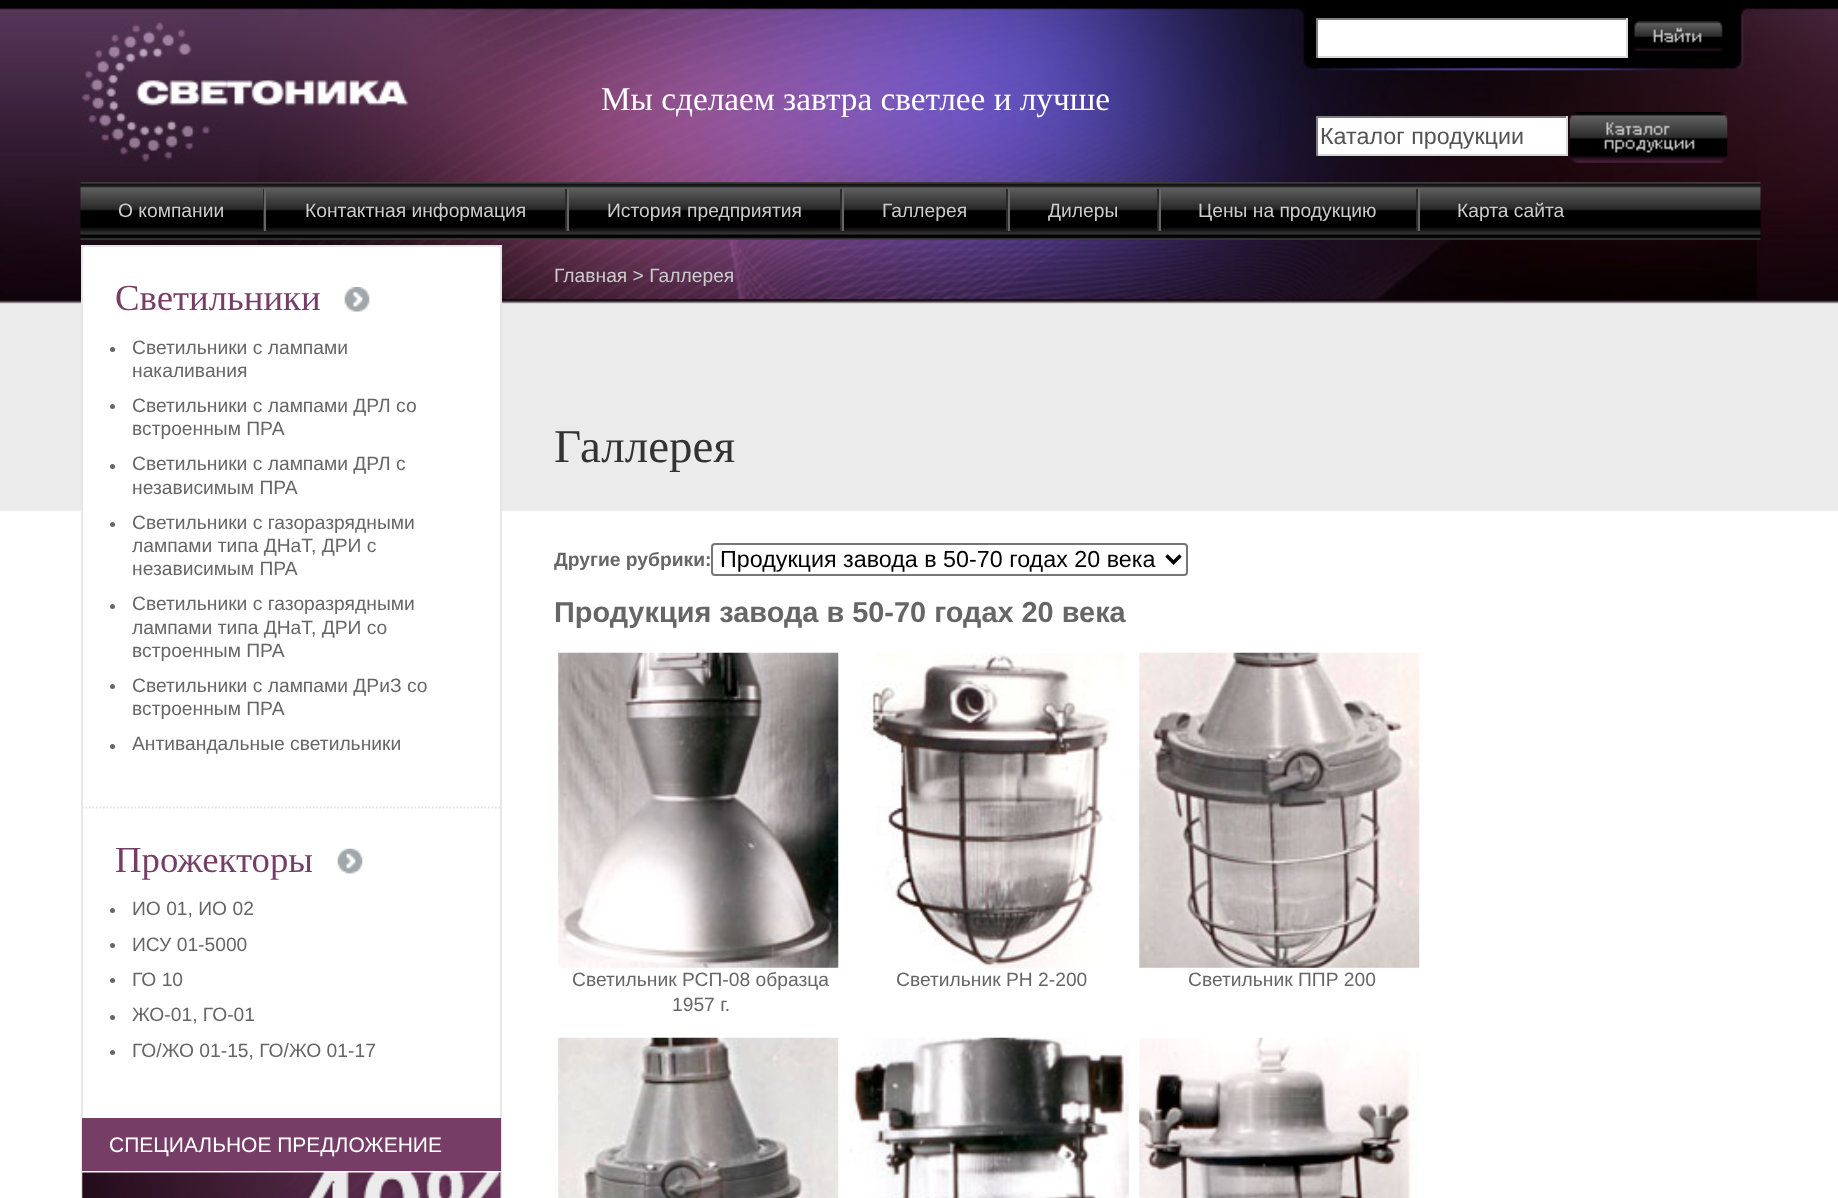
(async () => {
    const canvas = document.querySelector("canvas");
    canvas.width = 1838;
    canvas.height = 1198;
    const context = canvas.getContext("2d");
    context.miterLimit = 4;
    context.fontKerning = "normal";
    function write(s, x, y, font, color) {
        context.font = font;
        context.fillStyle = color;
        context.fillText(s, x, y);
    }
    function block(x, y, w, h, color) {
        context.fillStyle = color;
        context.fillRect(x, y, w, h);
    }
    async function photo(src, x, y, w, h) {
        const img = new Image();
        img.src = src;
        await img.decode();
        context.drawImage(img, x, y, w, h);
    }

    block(0, 0, 1838, 1198, "rgb(255, 255, 255)");
    await photo("media/1.png", 0, 299, 1838, 213);
    await photo("media/2.png", 0, 0, 1838, 300);
    await photo("media/3.png", 81, 22, 329, 140);
    write("Мы сделаем завтра светлее и лучше", 601, 110, "33.25px Liberation Serif", "rgb(255, 255, 255)");
    block(1318, 20, 308, 36, "rgb(255, 255, 255)");
    block(1316, 18, 312, 2, "rgb(127, 127, 127)");
    block(1626, 18, 2, 40, "rgb(217, 217, 217)");
    block(1316, 56, 312, 2, "rgb(217, 217, 217)");
    block(1316, 18, 2, 40, "rgb(127, 127, 127)");
    await photo("media/4.png", 1634, 21, 89, 30);
    block(1318, 118, 248, 36, "rgb(255, 255, 255)");
    block(1316, 116, 252, 2, "rgb(127, 127, 127)");
    block(1566, 116, 2, 40, "rgb(217, 217, 217)");
    block(1316, 154, 252, 2, "rgb(217, 217, 217)");
    block(1316, 116, 2, 40, "rgb(127, 127, 127)");
    write("Каталог продукции", 1320, 144, "23.3px Liberation Sans", "rgb(84, 84, 84)");
    await photo("media/5.png", 1569, 112, 159, 51);
    await photo("media/6.png", 80, 182, 1681, 58);
    write("О компании", 118, 217, "19.25px Liberation Sans", "rgb(204, 204, 204)");
    block(263, 189, 1, 42, "rgb(42, 42, 42)");
    write("Контактная информация", 305, 217, "19.25px Liberation Sans", "rgb(204, 204, 204)");
    block(565, 189, 2, 42, "rgb(42, 42, 42)");
    block(264, 189, 2, 42, "rgb(102, 102, 102)");
    write("История предприятия", 607, 217, "19.25px Liberation Sans", "rgb(204, 204, 204)");
    block(840, 189, 2, 42, "rgb(42, 42, 42)");
    block(567, 189, 2, 42, "rgb(102, 102, 102)");
    write("Галлерея", 882, 217, "19.25px Liberation Sans", "rgb(204, 204, 204)");
    block(1006, 189, 2, 42, "rgb(42, 42, 42)");
    block(842, 189, 2, 42, "rgb(102, 102, 102)");
    write("Дилеры", 1048, 217, "19.25px Liberation Sans", "rgb(204, 204, 204)");
    block(1157, 189, 2, 42, "rgb(42, 42, 42)");
    block(1008, 189, 2, 42, "rgb(102, 102, 102)");
    write("Цены на продукцию", 1198, 217, "19.25px Liberation Sans", "rgb(204, 204, 204)");
    block(1416, 189, 2, 42, "rgb(42, 42, 42)");
    block(1159, 189, 2, 42, "rgb(102, 102, 102)");
    write("Карта сайта", 1457, 217, "19.25px Liberation Sans", "rgb(204, 204, 204)");
    block(1418, 189, 2, 42, "rgb(102, 102, 102)");
    block(83, 247, 417, 265, "rgb(255, 255, 255)");
    context.strokeStyle = "rgb(230, 230, 230)";
    context.lineWidth = 2;
    context.strokeRect(82, 246, 419, 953);
    write("Светильники", 115, 310, "36.75px Liberation Serif", "rgb(118, 62, 102)");
    await photo("media/7.png", 344, 287, 26, 25);
    context.fillStyle = "rgb(102, 102, 102)";
    context.beginPath();
    context.arc(112.5, 349.5, 2.5, 0, Math.PI * 2);
    context.fill();
    write("Светильники с лампами", 132, 354, "19.25px Liberation Sans", "rgb(102, 102, 102)");
    write("накаливания", 132, 377, "19.25px Liberation Sans", "rgb(102, 102, 102)");
    context.beginPath();
    context.arc(112.5, 406.5, 2.5, 0, Math.PI * 2);
    context.fill();
    write("Светильники с лампами ДРЛ со", 132, 412, "19.25px Liberation Sans", "rgb(102, 102, 102)");
    write("встроенным ПРА", 132, 435, "19.25px Liberation Sans", "rgb(102, 102, 102)");
    context.beginPath();
    context.arc(112.5, 466.5, 2.5, 0, Math.PI * 2);
    context.fill();
    write("Светильники с лампами ДРЛ с", 132, 470, "19.25px Liberation Sans", "rgb(102, 102, 102)");
    write("независимым ПРА", 132, 494, "19.25px Liberation Sans", "rgb(102, 102, 102)");
    context.beginPath();
    context.arc(112.5, 524.5, 2.5, 0, Math.PI * 2);
    context.fill();
    write("Светильники с газоразрядными", 132, 529, "19.25px Liberation Sans", "rgb(102, 102, 102)");
    write("лампами типа ДНаТ, ДРИ с", 132, 552, "19.25px Liberation Sans", "rgb(102, 102, 102)");
    write("независимым ПРА", 132, 575, "19.25px Liberation Sans", "rgb(102, 102, 102)");
    context.beginPath();
    context.arc(112.5, 606.5, 2.5, 0, Math.PI * 2);
    context.fill();
    write("Светильники с газоразрядными", 132, 610, "19.25px Liberation Sans", "rgb(102, 102, 102)");
    write("лампами типа ДНаТ, ДРИ со", 132, 634, "19.25px Liberation Sans", "rgb(102, 102, 102)");
    write("встроенным ПРА", 132, 657, "19.25px Liberation Sans", "rgb(102, 102, 102)");
    context.beginPath();
    context.arc(112.5, 686.5, 2.5, 0, Math.PI * 2);
    context.fill();
    write("Светильники с лампами ДРиЗ со", 132, 692, "19.25px Liberation Sans", "rgb(102, 102, 102)");
    write("встроенным ПРА", 132, 715, "19.25px Liberation Sans", "rgb(102, 102, 102)");
    context.beginPath();
    context.arc(112.5, 746.5, 2.5, 0, Math.PI * 2);
    context.fill();
    write("Антивандальные светильники", 132, 750, "19.25px Liberation Sans", "rgb(102, 102, 102)");
    context.beginPath();
    context.moveTo(82, 807.5);
    context.lineTo(500.5, 807.5);
    context.lineWidth = 1.8;
    context.setLineDash([1.75, 1.75]);
    context.stroke();
    write("Прожекторы", 115, 872, "36.75px Liberation Serif", "rgb(118, 62, 102)");
    await photo("media/8.png", 337, 848, 26, 26);
    context.fillStyle = "rgb(102, 102, 102)";
    context.beginPath();
    context.arc(112.5, 910.5, 2.5, 0, Math.PI * 2);
    context.fill();
    write("ИО 01, ИО 02", 132, 915, "19.25px Liberation Sans", "rgb(102, 102, 102)");
    context.beginPath();
    context.arc(112.5, 945.5, 2.5, 0, Math.PI * 2);
    context.fill();
    write("ИСУ 01-5000", 132, 951, "19.25px Liberation Sans", "rgb(102, 102, 102)");
    context.beginPath();
    context.arc(112.5, 980.5, 2.5, 0, Math.PI * 2);
    context.fill();
    write("ГО 10", 132, 986, "19.25px Liberation Sans", "rgb(102, 102, 102)");
    context.beginPath();
    context.arc(112.5, 1017.5, 2.5, 0, Math.PI * 2);
    context.fill();
    write("ЖО-01, ГО-01", 132, 1021, "19.25px Liberation Sans", "rgb(102, 102, 102)");
    context.beginPath();
    context.arc(112.5, 1052.5, 2.5, 0, Math.PI * 2);
    context.fill();
    write("ГО/ЖО 01-15, ГО/ЖО 01-17", 132, 1057, "19.25px Liberation Sans", "rgb(102, 102, 102)");
    block(82, 1118, 419, 53, "rgb(118, 62, 102)");
    write("СПЕЦИАЛЬНОЕ ПРЕДЛОЖЕНИЕ", 109, 1152, "21px Liberation Sans", "rgb(255, 255, 255)");
    await photo("media/9.png", 82, 1172, 419, 26);
    write("Главная > Галлерея", 554, 282, "19.25px Liberation Sans", "rgb(204, 204, 204)");
    write("Галлерея", 554, 462, "47px Liberation Serif", "rgb(51, 51, 51)");
    write("Другие рубрики:", 554, 566, "bold 19.25px Liberation Sans", "rgb(102, 102, 102)");
    context.beginPath();
    context.roundRect(712, 544, 475, 31, 3);
    context.strokeStyle = "rgb(118, 118, 118)";
    context.lineWidth = 2;
    context.setLineDash([]);
    context.stroke();
    context.beginPath();
    context.moveTo(1166.5, 555.5);
    context.lineTo(1173.5, 562.5);
    context.lineTo(1180.5, 555.5);
    context.strokeStyle = "rgb(0, 0, 0)";
    context.lineWidth = 3.5;
    context.stroke();
    write("Продукция завода в 50-70 годах 20 века", 720, 567, "23.3px Liberation Sans", "rgb(0, 0, 0)");
    write("Продукция завода в 50-70 годах 20 века", 554, 622, "bold 28.9px Liberation Sans", "rgb(102, 102, 102)");
    await photo("media/10.png", 558, 652, 281, 316);
    write("Светильник РСП-08 образца", 572, 986, "19.25px Liberation Sans", "rgb(102, 102, 102)");
    write("1957 г.", 672, 1011, "19.25px Liberation Sans", "rgb(102, 102, 102)");
    await photo("media/11.png", 863, 653, 266, 315);
    write("Светильник РН 2-200", 896, 986, "19.25px Liberation Sans", "rgb(102, 102, 102)");
    await photo("media/12.png", 1139, 652, 281, 316);
    write("Светильник ППР 200", 1188, 986, "19.25px Liberation Sans", "rgb(102, 102, 102)");
    await photo("media/13.png", 558, 1037, 281, 161);
    await photo("media/14.png", 849, 1037, 280, 161);
    await photo("media/15.png", 1139, 1037, 280, 161);
})();
